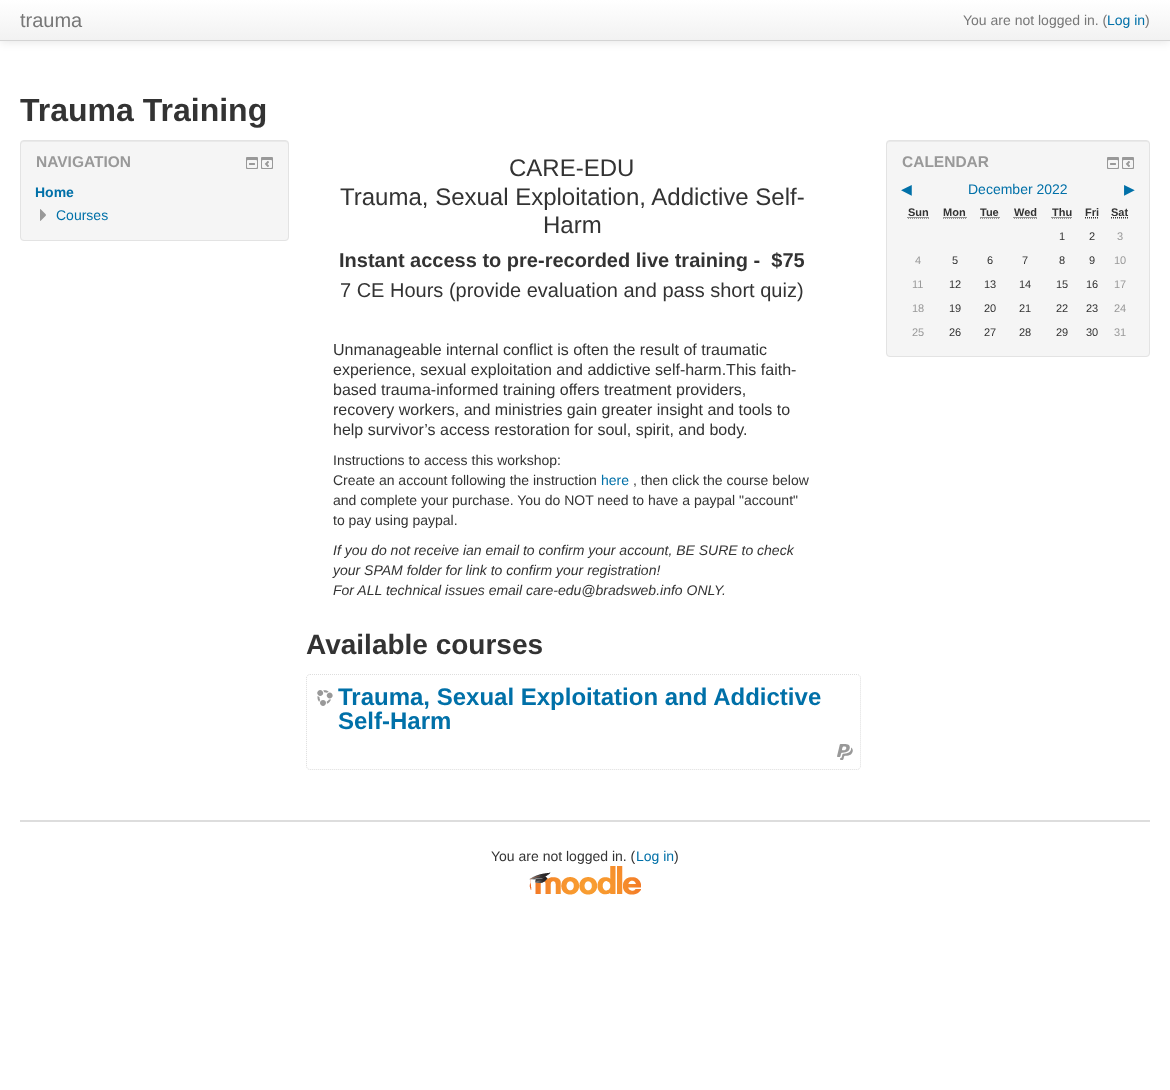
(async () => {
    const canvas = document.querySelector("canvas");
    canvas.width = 1170;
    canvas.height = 1090;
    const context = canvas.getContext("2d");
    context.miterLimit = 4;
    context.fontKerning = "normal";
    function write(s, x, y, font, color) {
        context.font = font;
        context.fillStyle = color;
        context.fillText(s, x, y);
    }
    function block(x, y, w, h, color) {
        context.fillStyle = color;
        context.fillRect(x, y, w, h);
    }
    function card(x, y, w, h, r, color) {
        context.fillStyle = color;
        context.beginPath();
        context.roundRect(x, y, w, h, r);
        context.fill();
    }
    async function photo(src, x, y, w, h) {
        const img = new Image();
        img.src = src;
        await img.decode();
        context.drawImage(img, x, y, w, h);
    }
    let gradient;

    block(0, 0, 1170, 1090, "rgb(255, 255, 255)");
    context.fillStyle = "rgba(0, 0, 0, 0.1)";
    context.filter = "blur(5px)";
    context.beginPath();
    context.rect(0, 1, 1170, 41);
    context.fill();
    context.filter = "none";
    gradient = context.createLinearGradient(585, 0, 585, 40);
    gradient.addColorStop(0, "rgb(255, 255, 255)");
    gradient.addColorStop(1, "rgb(242, 242, 242)");
    context.fillStyle = gradient;
    context.fillRect(0, 0, 1170, 40);
    block(0, 40, 1170, 1, "rgb(212, 212, 212)");
    write("trauma", 20, 27, "20px Liberation Sans", "rgb(119, 119, 119)");
    write("You are not logged in. (", 963, 25, "14px Liberation Sans", "rgb(119, 119, 119)");
    write("Log in", 1107, 25, "14px Liberation Sans", "rgb(0, 112, 168)");
    write(")", 1145, 25, "14px Liberation Sans", "rgb(119, 119, 119)");
    write("Trauma Training", 20, 121, "bold 32px Liberation Sans", "rgb(51, 51, 51)");
    card(20, 140, 269, 101, 4, "rgb(245, 245, 245)");
    context.fillStyle = "rgb(233, 233, 233)";
    context.beginPath();
    context.moveTo(24, 142);
    context.lineTo(285, 142);
    context.bezierCurveTo(287, 142, 288, 143, 288, 145);
    context.lineTo(288, 144);
    context.bezierCurveTo(288, 142, 287, 141, 285, 141);
    context.lineTo(24, 141);
    context.bezierCurveTo(22, 141, 21, 142, 21, 144);
    context.lineTo(21, 145);
    context.bezierCurveTo(21, 143, 22, 142, 24, 142);
    context.closePath();
    context.fill();
    context.beginPath();
    context.roundRect(20.5, 140.5, 268, 100, 3.5);
    context.strokeStyle = "rgb(227, 227, 227)";
    context.stroke();
    write("NAVIGATION", 36, 167, "bold 15.5px Liberation Sans", "rgb(153, 153, 153)");
    await photo("media/1.png", 246, 157, 12, 12);
    await photo("media/2.png", 261, 157, 12, 12);
    write("Home", 35, 197, "bold 14px Liberation Sans", "rgb(0, 112, 168)");
    await photo("media/3.png", 40, 209, 6, 12);
    write("Courses", 56, 220, "14px Liberation Sans", "rgb(0, 112, 168)");
    write("CARE-EDU", 509, 176, "24px Liberation Sans", "rgb(51, 51, 51)");
    write("Trauma, Sexual Exploitation, Addictive Self-", 340, 205, "24px Liberation Sans", "rgb(51, 51, 51)");
    write("Harm", 543, 233, "24px Liberation Sans", "rgb(51, 51, 51)");
    write("Instant access to pre-recorded live training -  $75", 339, 267, "bold 20px Liberation Sans", "rgb(51, 51, 51)");
    write("7 CE Hours (provide evaluation and pass short quiz)", 340, 297, "20px Liberation Sans", "rgb(51, 51, 51)");
    write("Unmanageable internal conflict is often the result of traumatic", 333, 355, "16px Liberation Sans", "rgb(51, 51, 51)");
    write("experience, sexual exploitation and addictive self-harm.This faith-", 333, 375, "16px Liberation Sans", "rgb(51, 51, 51)");
    write("based trauma-informed training offers treatment providers,", 333, 395, "16px Liberation Sans", "rgb(51, 51, 51)");
    write("recovery workers, and ministries gain greater insight and tools to", 333, 415, "16px Liberation Sans", "rgb(51, 51, 51)");
    write("help survivor’s access restoration for soul, spirit, and body.", 333, 435, "16px Liberation Sans", "rgb(51, 51, 51)");
    write("Instructions to access this workshop:", 333, 465, "14px Liberation Sans", "rgb(51, 51, 51)");
    write("Create an account following the instruction", 333, 485, "14px Liberation Sans", "rgb(51, 51, 51)");
    write("here", 601, 485, "14px Liberation Sans", "rgb(0, 112, 168)");
    write(", then click the course below", 633, 485, "14px Liberation Sans", "rgb(51, 51, 51)");
    write("and complete your purchase. You do NOT need to have a paypal \"account\"", 333, 505, "14px Liberation Sans", "rgb(51, 51, 51)");
    write("to pay using paypal.", 333, 525, "14px Liberation Sans", "rgb(51, 51, 51)");
    write("If you do not receive ian email to confirm your account, BE SURE to check", 333, 555, "italic 14px Liberation Sans", "rgb(51, 51, 51)");
    write("your SPAM folder for link to confirm your registration!", 333, 575, "italic 14px Liberation Sans", "rgb(51, 51, 51)");
    write("For ALL technical issues email care-edu@bradsweb.info ONLY.", 333, 595, "italic 14px Liberation Sans", "rgb(51, 51, 51)");
    write("Available courses", 306, 654, "bold 28px Liberation Sans", "rgb(51, 51, 51)");
    context.beginPath();
    context.moveTo(310, 674.5);
    context.lineTo(857, 674.5);
    context.bezierCurveTo(859, 674.5, 860.5, 676, 860.5, 678);
    context.lineTo(860.5, 766);
    context.bezierCurveTo(860.5, 768, 859, 769.5, 857, 769.5);
    context.lineTo(310, 769.5);
    context.bezierCurveTo(308, 769.5, 306.5, 768, 306.5, 766);
    context.lineTo(306.5, 678);
    context.bezierCurveTo(306.5, 676, 308, 674.5, 310, 674.5);
    context.closePath();
    context.strokeStyle = "rgb(221, 221, 221)";
    context.setLineDash([1, 1]);
    context.stroke();
    await photo("media/4.png", 317, 690, 16, 16);
    write("Trauma, Sexual Exploitation and Addictive", 338, 705, "bold 24px Liberation Sans", "rgb(0, 112, 168)");
    write("Self-Harm", 338, 729, "bold 24px Liberation Sans", "rgb(0, 112, 168)");
    await photo("media/5.png", 837, 744, 16, 16);
    card(886, 140, 264, 217, 4, "rgb(245, 245, 245)");
    context.fillStyle = "rgb(233, 233, 233)";
    context.beginPath();
    context.moveTo(890, 142);
    context.lineTo(1147, 142);
    context.lineTo(1149, 143);
    context.lineTo(1149, 145);
    context.lineTo(1149, 144);
    context.bezierCurveTo(1149, 142, 1148, 141, 1146, 141);
    context.lineTo(890, 141);
    context.bezierCurveTo(888, 141, 887, 142, 887, 144);
    context.lineTo(887, 145);
    context.bezierCurveTo(887, 143, 888, 142, 890, 142);
    context.closePath();
    context.fill();
    context.beginPath();
    context.roundRect(886.5, 140.5, 263, 216, 3.5);
    context.strokeStyle = "rgb(227, 227, 227)";
    context.setLineDash([]);
    context.stroke();
    write("CALENDAR", 902, 167, "bold 15.5px Liberation Sans", "rgb(153, 153, 153)");
    await photo("media/1.png", 1107, 157, 12, 12);
    await photo("media/2.png", 1122, 157, 12, 12);
    write("◀︎", 901, 194, "14px DejaVu Sans", "rgb(0, 112, 168)");
    write("December 2022", 968, 194, "14px Liberation Sans", "rgb(0, 112, 168)");
    write("▶︎", 1124, 194, "14px DejaVu Sans", "rgb(0, 112, 168)");
    write("Sun", 908, 216, "bold 11px Liberation Sans", "rgb(51, 51, 51)");
    context.beginPath();
    context.moveTo(908, 218.5);
    context.lineTo(929, 218.5);
    context.strokeStyle = "rgb(153, 153, 153)";
    context.setLineDash([1, 1]);
    context.stroke();
    context.beginPath();
    context.moveTo(907.5, 217.5);
    context.lineTo(929, 217.5);
    context.strokeStyle = "rgb(51, 51, 51)";
    context.stroke();
    write("Mon", 943, 216, "bold 11px Liberation Sans", "rgb(51, 51, 51)");
    context.beginPath();
    context.moveTo(943, 218.5);
    context.lineTo(966, 218.5);
    context.strokeStyle = "rgb(153, 153, 153)";
    context.stroke();
    context.beginPath();
    context.moveTo(943.5, 217.5);
    context.lineTo(966.5, 217.5);
    context.strokeStyle = "rgb(51, 51, 51)";
    context.stroke();
    write("Tue", 980, 216, "bold 11px Liberation Sans", "rgb(51, 51, 51)");
    context.beginPath();
    context.moveTo(980, 218.5);
    context.lineTo(1000, 218.5);
    context.strokeStyle = "rgb(153, 153, 153)";
    context.stroke();
    context.beginPath();
    context.moveTo(980.5, 217.5);
    context.lineTo(999.5, 217.5);
    context.strokeStyle = "rgb(51, 51, 51)";
    context.stroke();
    write("Wed", 1014, 216, "bold 11px Liberation Sans", "rgb(51, 51, 51)");
    context.beginPath();
    context.moveTo(1014, 218.5);
    context.lineTo(1037, 218.5);
    context.strokeStyle = "rgb(153, 153, 153)";
    context.stroke();
    context.beginPath();
    context.moveTo(1013.5, 217.5);
    context.lineTo(1037, 217.5);
    context.strokeStyle = "rgb(51, 51, 51)";
    context.stroke();
    write("Thu", 1052, 216, "bold 11px Liberation Sans", "rgb(51, 51, 51)");
    context.beginPath();
    context.moveTo(1052, 218.5);
    context.lineTo(1072, 218.5);
    context.strokeStyle = "rgb(153, 153, 153)";
    context.stroke();
    context.beginPath();
    context.moveTo(1051.5, 217.5);
    context.lineTo(1072, 217.5);
    context.strokeStyle = "rgb(51, 51, 51)";
    context.stroke();
    write("Fri", 1085, 216, "bold 11px Liberation Sans", "rgb(51, 51, 51)");
    context.beginPath();
    context.moveTo(1085, 218.5);
    context.lineTo(1099, 218.5);
    context.strokeStyle = "rgb(153, 153, 153)";
    context.stroke();
    context.beginPath();
    context.moveTo(1085, 217.5);
    context.lineTo(1099, 217.5);
    context.strokeStyle = "rgb(51, 51, 51)";
    context.stroke();
    write("Sat", 1111, 216, "bold 11px Liberation Sans", "rgb(51, 51, 51)");
    context.beginPath();
    context.moveTo(1111, 218.5);
    context.lineTo(1129, 218.5);
    context.strokeStyle = "rgb(153, 153, 153)";
    context.stroke();
    context.beginPath();
    context.moveTo(1111, 217.5);
    context.lineTo(1128.5, 217.5);
    context.strokeStyle = "rgb(51, 51, 51)";
    context.stroke();
    write("1", 1059, 240, "11px Liberation Sans", "rgb(51, 51, 51)");
    write("2", 1089, 240, "11px Liberation Sans", "rgb(51, 51, 51)");
    write("3", 1117, 240, "11px Liberation Sans", "rgb(153, 153, 153)");
    write("4", 915, 264, "11px Liberation Sans", "rgb(153, 153, 153)");
    write("5", 952, 264, "11px Liberation Sans", "rgb(51, 51, 51)");
    write("6", 987, 264, "11px Liberation Sans", "rgb(51, 51, 51)");
    write("7", 1022, 264, "11px Liberation Sans", "rgb(51, 51, 51)");
    write("8", 1059, 264, "11px Liberation Sans", "rgb(51, 51, 51)");
    write("9", 1089, 264, "11px Liberation Sans", "rgb(51, 51, 51)");
    write("10", 1114, 264, "11px Liberation Sans", "rgb(153, 153, 153)");
    write("11", 912, 288, "11px Liberation Sans", "rgb(153, 153, 153)");
    write("12", 949, 288, "11px Liberation Sans", "rgb(51, 51, 51)");
    write("13", 984, 288, "11px Liberation Sans", "rgb(51, 51, 51)");
    write("14", 1019, 288, "11px Liberation Sans", "rgb(51, 51, 51)");
    write("15", 1056, 288, "11px Liberation Sans", "rgb(51, 51, 51)");
    write("16", 1086, 288, "11px Liberation Sans", "rgb(51, 51, 51)");
    write("17", 1114, 288, "11px Liberation Sans", "rgb(153, 153, 153)");
    write("18", 912, 312, "11px Liberation Sans", "rgb(153, 153, 153)");
    write("19", 949, 312, "11px Liberation Sans", "rgb(51, 51, 51)");
    write("20", 984, 312, "11px Liberation Sans", "rgb(51, 51, 51)");
    write("21", 1019, 312, "11px Liberation Sans", "rgb(51, 51, 51)");
    write("22", 1056, 312, "11px Liberation Sans", "rgb(51, 51, 51)");
    write("23", 1086, 312, "11px Liberation Sans", "rgb(51, 51, 51)");
    write("24", 1114, 312, "11px Liberation Sans", "rgb(153, 153, 153)");
    write("25", 912, 336, "11px Liberation Sans", "rgb(153, 153, 153)");
    write("26", 949, 336, "11px Liberation Sans", "rgb(51, 51, 51)");
    write("27", 984, 336, "11px Liberation Sans", "rgb(51, 51, 51)");
    write("28", 1019, 336, "11px Liberation Sans", "rgb(51, 51, 51)");
    write("29", 1056, 336, "11px Liberation Sans", "rgb(51, 51, 51)");
    write("30", 1086, 336, "11px Liberation Sans", "rgb(51, 51, 51)");
    write("31", 1114, 336, "11px Liberation Sans", "rgb(153, 153, 153)");
    block(20, 820, 1130, 2, "rgb(221, 221, 221)");
    write("You are not logged in. (", 491, 861, "14px Liberation Sans", "rgb(51, 51, 51)");
    write("Log in", 636, 861, "14px Liberation Sans", "rgb(0, 112, 168)");
    write(")", 674, 861, "14px Liberation Sans", "rgb(51, 51, 51)");
    await photo("media/6.png", 529, 866, 112, 29);
})();
